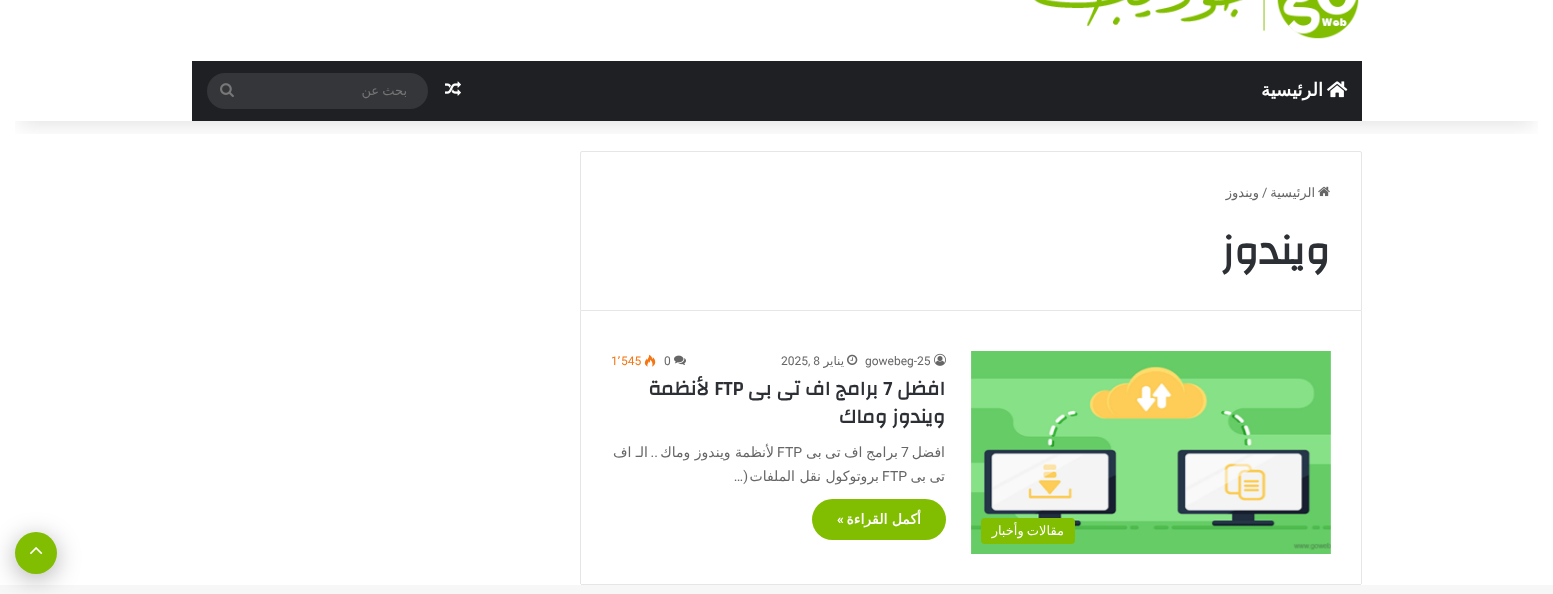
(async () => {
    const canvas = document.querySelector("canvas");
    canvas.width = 1553;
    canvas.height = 594;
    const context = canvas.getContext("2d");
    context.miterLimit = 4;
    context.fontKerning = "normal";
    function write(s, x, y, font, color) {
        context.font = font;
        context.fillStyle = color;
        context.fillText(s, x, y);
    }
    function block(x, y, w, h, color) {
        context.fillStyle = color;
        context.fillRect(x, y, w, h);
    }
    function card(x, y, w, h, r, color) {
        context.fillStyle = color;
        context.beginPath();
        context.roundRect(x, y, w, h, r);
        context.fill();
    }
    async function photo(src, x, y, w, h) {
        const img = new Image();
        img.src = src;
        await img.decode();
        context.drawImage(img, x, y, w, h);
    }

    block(0, 0, 1553, 594, "rgb(247, 247, 247)");
    block(0, 0, 1553, 585, "rgb(255, 255, 255)");
    context.beginPath();
    context.roundRect(580.5, 151.5, 781, 159, [1.5, 1.5, 0, 0]);
    context.strokeStyle = "rgb(230, 230, 230)";
    context.stroke();
    context.save();
    context.beginPath();
    context.rect(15, 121, 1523, 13);
    context.clip();
    context.fillStyle = "rgba(0, 0, 0, 0.1)";
    context.filter = "blur(10px)";
    context.beginPath();
    context.rect(20, -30, 1513, 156);
    context.fill();
    context.filter = "none";
    context.restore();
    await photo("media/1.png", 1034, 0, 325, 39);
    block(192, 61, 1170, 60, "rgb(31, 32, 36)");
    await photo("media/2.png", 1327, 81, 21, 17);
    context.direction = "rtl";
    write("الرئيسية", 1323, 96, "bold 18px DejaVu Sans", "rgb(255, 255, 255)");
    await photo("media/3.png", 445, 81, 16, 15);
    card(207, 73, 221, 36, 18, "rgb(53, 54, 58)");
    context.wordSpacing = "-1px";
    write("بحث عن", 407, 95, "13px DejaVu Sans", "rgb(117, 117, 117)");
    await photo("media/4.png", 220, 83, 14, 14);
    await photo("media/5.png", 1318, 186, 12, 11);
    context.wordSpacing = "0px";
    write("الرئيسية", 1315, 197, "13px DejaVu Sans", "rgb(102, 102, 102)");
    context.direction = "ltr";
    write("/", 1262, 197, "13px Roboto", "rgb(102, 102, 102)");
    context.direction = "rtl";
    write("ويندوز", 1259, 197, "13px DejaVu Sans", "rgb(102, 102, 102)");
    write("ويندوز", 1330, 264, "bold 41px Changa", "rgb(44, 47, 52)");
    block(1361, 311, 1, 273, "rgb(230, 230, 230)");
    block(581, 584, 780, 1, "rgb(230, 230, 230)");
    block(580, 311, 1, 273, "rgb(230, 230, 230)");
    await photo("media/6.png", 934, 353, 12, 13);
    context.direction = "ltr";
    write("gowebeg-25", 865, 365, "12px Roboto", "rgb(102, 102, 102)");
    await photo("media/7.png", 847, 354, 11, 11);
    context.direction = "rtl";
    write("يناير", 844, 365, "12px DejaVu Sans", "rgb(102, 102, 102)");
    context.direction = "ltr";
    write("2025, 8", 781, 365, "12px Roboto", "rgb(102, 102, 102)");
    await photo("media/8.png", 674, 355, 12, 10);
    write("0", 664, 365, "12px Roboto", "rgb(102, 102, 102)");
    await photo("media/9.png", 644, 354, 12, 13);
    write("545", 621, 365, "12px Roboto", "rgb(244, 117, 18)");
    write("٬", 617, 365, "12px DejaVu Sans", "rgb(244, 117, 18)");
    write("1", 611, 365, "12px Roboto", "rgb(244, 117, 18)");
    context.direction = "rtl";
    write("افضل", 945, 395, "bold 20px Changa", "rgb(44, 47, 52)");
    context.direction = "ltr";
    write("7", 883, 395, "bold 20px Changa", "rgb(44, 47, 52)");
    context.direction = "rtl";
    write("برامج اف تى بى", 878, 395, "bold 20px Changa", "rgb(44, 47, 52)");
    context.direction = "ltr";
    write("FTP", 714, 395, "bold 20px Changa", "rgb(44, 47, 52)");
    context.direction = "rtl";
    write("لأنظمة", 709, 395, "bold 20px Changa", "rgb(44, 47, 52)");
    write("ويندوز وماك", 945, 423, "bold 20px Changa", "rgb(44, 47, 52)");
    write("افضل", 945, 457, "14px DejaVu Sans", "rgb(102, 102, 102)");
    context.direction = "ltr";
    write("7", 901, 457, "14px Roboto", "rgb(102, 102, 102)");
    context.wordSpacing = "-1px";
    context.direction = "rtl";
    write("برامج اف تى بى", 898, 457, "14px DejaVu Sans", "rgb(102, 102, 102)");
    context.wordSpacing = "0px";
    context.direction = "ltr";
    write("FTP", 777, 457, "14px Roboto", "rgb(102, 102, 102)");
    context.direction = "rtl";
    write("لأنظمة ويندوز وماك", 774, 457, "14px DejaVu Sans", "rgb(102, 102, 102)");
    write("..", 658, 457, "14px Roboto", "rgb(102, 102, 102)");
    write("الـ اف", 648, 457, "14px DejaVu Sans", "rgb(102, 102, 102)");
    context.wordSpacing = "-1px";
    write("تى بى", 945, 481, "14px DejaVu Sans", "rgb(102, 102, 102)");
    context.wordSpacing = "0px";
    context.direction = "ltr";
    write("FTP", 882, 481, "14px Roboto", "rgb(102, 102, 102)");
    context.direction = "rtl";
    write("بروتوكول نقل الملفات", 879, 481, "14px DejaVu Sans", "rgb(102, 102, 102)");
    write("(…", 748, 481, "14px Roboto", "rgb(102, 102, 102)");
    card(812, 499, 134, 41, 20.5, "rgb(129, 189, 0)");
    write("أكمل القراءة", 921, 524, "bold 14px DejaVu Sans", "rgb(255, 255, 255)");
    write("»", 844, 524, "600 14px Roboto", "rgb(255, 255, 255)");
    await photo("media/10.png", 971, 351, 360, 203);
    card(981, 518, 94, 26, 4, "rgb(129, 189, 0)");
    context.wordSpacing = "-1px";
    write("مقالات وأخبار", 1064, 535, "13px DejaVu Sans", "rgb(255, 255, 255)");
    context.fillStyle = "rgba(0, 0, 0, 0.3)";
    context.filter = "blur(12.5px)";
    context.beginPath();
    context.roundRect(15, 537, 42, 42, 21);
    context.fill();
    context.filter = "none";
    context.fillStyle = "rgb(129, 189, 0)";
    context.beginPath();
    context.arc(36, 553, 21, 0, Math.PI * 2);
    context.fill();
    await photo("media/11.png", 30, 547, 13, 8);
})();
